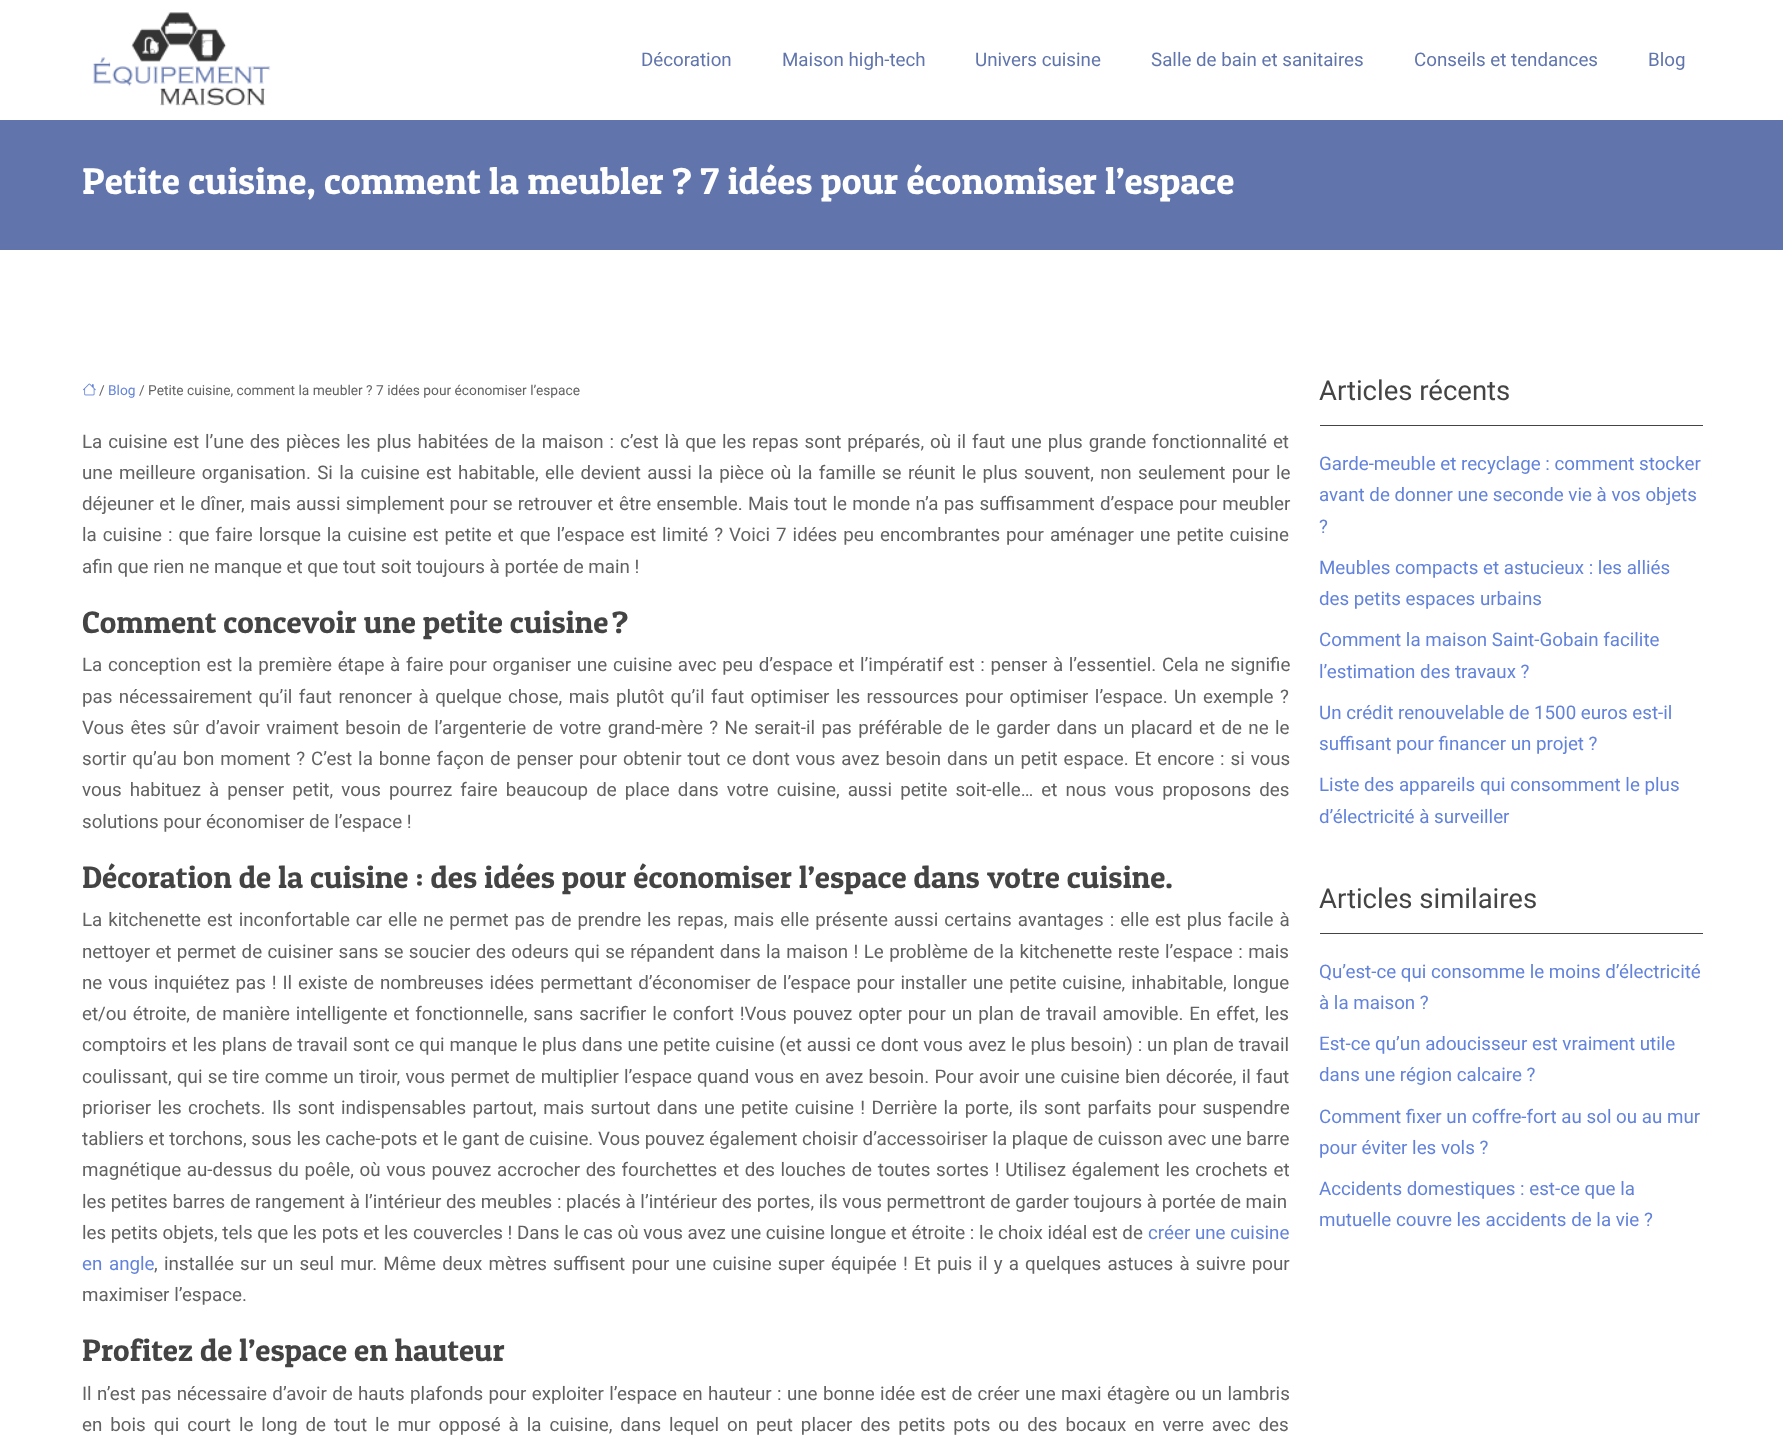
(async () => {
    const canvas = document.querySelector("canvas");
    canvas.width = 1783;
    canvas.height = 1449;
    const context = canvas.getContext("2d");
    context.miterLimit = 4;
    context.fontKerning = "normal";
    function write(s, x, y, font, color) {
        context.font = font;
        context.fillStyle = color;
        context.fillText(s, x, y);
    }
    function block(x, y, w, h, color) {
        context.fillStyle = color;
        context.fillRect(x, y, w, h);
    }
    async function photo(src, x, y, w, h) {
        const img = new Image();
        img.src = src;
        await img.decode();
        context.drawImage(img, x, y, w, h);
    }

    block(0, 0, 1783, 1449, "rgb(255, 255, 255)");
    await photo("media/1.png", 92, 12, 179, 94);
    write("Décoration", 641, 66, "18.75px Roboto", "rgb(97, 117, 172)");
    write("Maison high-tech", 782, 66, "18.75px Roboto", "rgb(97, 117, 172)");
    write("Univers cuisine", 975, 66, "18.75px Roboto", "rgb(97, 117, 172)");
    write("Salle de bain et sanitaires", 1151, 66, "18.75px Roboto", "rgb(97, 117, 172)");
    write("Conseils et tendances", 1414, 66, "18.75px Roboto", "rgb(97, 117, 172)");
    write("Blog", 1648, 66, "18.75px Roboto", "rgb(97, 117, 172)");
    block(0, 120, 1783, 130, "rgb(97, 117, 172)");
    write("Petite cuisine, comment la meubler ? 7 idées pour économiser l’espace", 82, 194, "37.5px Patua One", "rgb(255, 255, 255)");
    await photo("media/2.png", 83, 383, 13, 13);
    write("/", 99, 395, "13.75px Roboto", "rgb(98, 98, 98)");
    write("Blog", 108, 395, "13.75px Roboto", "rgb(99, 131, 219)");
    write("/ Petite cuisine, comment la meubler ? 7 idées pour économiser l’espace", 139, 395, "13.75px Roboto", "rgb(98, 98, 98)");
    context.wordSpacing = "1.25px";
    write("La cuisine est l’une des pièces les plus habitées de la maison : c’est là que les repas sont préparés, où il faut une plus grande fonctionnalité et", 82, 448, "18.75px Roboto", "rgb(98, 98, 98)");
    context.wordSpacing = "1.7px";
    write("une meilleure organisation. Si la cuisine est habitable, elle devient aussi la pièce où la famille se réunit le plus souvent, non seulement pour le", 82, 479, "18.75px Roboto", "rgb(98, 98, 98)");
    context.wordSpacing = "0.6px";
    write("déjeuner et le dîner, mais aussi simplement pour se retrouver et être ensemble. Mais tout le monde n’a pas suffisamment d’espace pour meubler", 82, 510, "18.75px Roboto", "rgb(98, 98, 98)");
    context.wordSpacing = "1.3px";
    write("la cuisine : que faire lorsque la cuisine est petite et que l’espace est limité ? Voici 7 idées peu encombrantes pour aménager une petite cuisine", 82, 541, "18.75px Roboto", "rgb(98, 98, 98)");
    context.wordSpacing = "0px";
    write("afin que rien ne manque et que tout soit toujours à portée de main !", 82, 573, "18.75px Roboto", "rgb(98, 98, 98)");
    write("Comment concevoir une petite cuisine ?", 82, 633, "31.25px Patua One", "rgb(68, 68, 68)");
    context.wordSpacing = "1px";
    write("La conception est la première étape à faire pour organiser une cuisine avec peu d’espace et l’impératif est : penser à l’essentiel. Cela ne signifie", 82, 671, "18.75px Roboto", "rgb(98, 98, 98)");
    context.wordSpacing = "1.8px";
    write("pas nécessairement qu’il faut renoncer à quelque chose, mais plutôt qu’il faut optimiser les ressources pour optimiser l’espace. Un exemple ?", 82, 703, "18.75px Roboto", "rgb(98, 98, 98)");
    context.wordSpacing = "1.7px";
    write("Vous êtes sûr d’avoir vraiment besoin de l’argenterie de votre grand-mère ? Ne serait-il pas préférable de le garder dans un placard et de ne le", 82, 734, "18.75px Roboto", "rgb(98, 98, 98)");
    context.wordSpacing = "1.25px";
    write("sortir qu’au bon moment ? C’est la bonne façon de penser pour obtenir tout ce dont vous avez besoin dans un petit espace. Et encore : si vous", 82, 765, "18.75px Roboto", "rgb(98, 98, 98)");
    context.wordSpacing = "3.4px";
    write("vous habituez à penser petit, vous pourrez faire beaucoup de place dans votre cuisine, aussi petite soit-elle… et nous vous proposons des", 82, 796, "18.75px Roboto", "rgb(98, 98, 98)");
    context.wordSpacing = "0px";
    write("solutions pour économiser de l’espace !", 82, 828, "18.75px Roboto", "rgb(98, 98, 98)");
    write("Décoration de la cuisine : des idées pour économiser l’espace dans votre cuisine.", 82, 888, "31.25px Patua One", "rgb(68, 68, 68)");
    context.wordSpacing = "1.3px";
    write("La kitchenette est inconfortable car elle ne permet pas de prendre les repas, mais elle présente aussi certains avantages : elle est plus facile à", 82, 926, "18.75px Roboto", "rgb(98, 98, 98)");
    context.wordSpacing = "0.75px";
    write("nettoyer et permet de cuisiner sans se soucier des odeurs qui se répandent dans la maison ! Le problème de la kitchenette reste l’espace : mais", 82, 958, "18.75px Roboto", "rgb(98, 98, 98)");
    context.wordSpacing = "1.25px";
    write("ne vous inquiétez pas ! Il existe de nombreuses idées permettant d’économiser de l’espace pour installer une petite cuisine, inhabitable, longue", 82, 989, "18.75px Roboto", "rgb(98, 98, 98)");
    write("et/ou étroite, de manière intelligente et fonctionnelle, sans sacrifier le confort !Vous pouvez opter pour un plan de travail amovible. En effet, les", 82, 1020, "18.75px Roboto", "rgb(98, 98, 98)");
    context.wordSpacing = "0.25px";
    write("comptoirs et les plans de travail sont ce qui manque le plus dans une petite cuisine (et aussi ce dont vous avez le plus besoin) : un plan de travail", 82, 1051, "18.75px Roboto", "rgb(98, 98, 98)");
    context.wordSpacing = "0.6px";
    write("coulissant, qui se tire comme un tiroir, vous permet de multiplier l’espace quand vous en avez besoin. Pour avoir une cuisine bien décorée, il faut", 82, 1083, "18.75px Roboto", "rgb(98, 98, 98)");
    context.wordSpacing = "1.75px";
    write("prioriser les crochets. Ils sont indispensables partout, mais surtout dans une petite cuisine ! Derrière la porte, ils sont parfaits pour suspendre", 82, 1114, "18.75px Roboto", "rgb(98, 98, 98)");
    context.wordSpacing = "0px";
    write("tabliers et torchons, sous les cache-pots et le gant de cuisine. Vous pouvez également choisir d’accessoiriser la plaque de cuisson avec une barre", 82, 1145, "18.75px Roboto", "rgb(98, 98, 98)");
    context.wordSpacing = "1px";
    write("magnétique au-dessus du poêle, où vous pouvez accrocher des fourchettes et des louches de toutes sortes ! Utilisez également les crochets et", 82, 1176, "18.75px Roboto", "rgb(98, 98, 98)");
    context.wordSpacing = "0px";
    write("les petites barres de rangement à l’intérieur des meubles : placés à l’intérieur des portes, ils vous permettront de garder toujours à portée de main", 82, 1208, "18.75px Roboto", "rgb(98, 98, 98)");
    write("les petits objets, tels que les pots et les couvercles ! Dans le cas où vous avez une cuisine longue et étroite : le choix idéal est de", 82, 1239, "18.75px Roboto", "rgb(98, 98, 98)");
    write("créer une cuisine", 1148, 1239, "18.75px Roboto", "rgb(99, 131, 219)");
    context.wordSpacing = "2px";
    write("en angle", 82, 1270, "18.75px Roboto", "rgb(99, 131, 219)");
    context.wordSpacing = "1.55px";
    write(", installée sur un seul mur. Même deux mètres suffisent pour une cuisine super équipée ! Et puis il y a quelques astuces à suivre pour", 154, 1270, "18.75px Roboto", "rgb(98, 98, 98)");
    context.wordSpacing = "0px";
    write("maximiser l’espace.", 82, 1301, "18.75px Roboto", "rgb(98, 98, 98)");
    write("Profitez de l’espace en hauteur", 82, 1361, "31.25px Patua One", "rgb(68, 68, 68)");
    context.wordSpacing = "0.7px";
    write("Il n’est pas nécessaire d’avoir de hauts plafonds pour exploiter l’espace en hauteur : une bonne idée est de créer une maxi étagère ou un lambris", 82, 1400, "18.75px Roboto", "rgb(98, 98, 98)");
    context.wordSpacing = "3.3px";
    write("en bois qui court le long de tout le mur opposé à la cuisine, dans lequel on peut placer des petits pots ou des bocaux en verre avec des", 82, 1431, "18.75px Roboto", "rgb(98, 98, 98)");
    block(1320, 425, 383, 1, "rgb(68, 68, 68)");
    context.wordSpacing = "0px";
    write("Articles récents", 1319, 400, "27.5px Roboto", "rgb(68, 68, 68)");
    write("Garde-meuble et recyclage : comment stocker", 1319, 470, "18.75px Roboto", "rgb(99, 131, 219)");
    write("avant de donner une seconde vie à vos objets", 1319, 501, "18.75px Roboto", "rgb(99, 131, 219)");
    write("?", 1319, 533, "18.75px Roboto", "rgb(99, 131, 219)");
    write("Meubles compacts et astucieux : les alliés", 1319, 574, "18.75px Roboto", "rgb(99, 131, 219)");
    write("des petits espaces urbains", 1319, 605, "18.75px Roboto", "rgb(99, 131, 219)");
    write("Comment la maison Saint-Gobain facilite", 1319, 646, "18.75px Roboto", "rgb(99, 131, 219)");
    write("l’estimation des travaux ?", 1319, 678, "18.75px Roboto", "rgb(99, 131, 219)");
    write("Un crédit renouvelable de 1500 euros est-il", 1319, 719, "18.75px Roboto", "rgb(99, 131, 219)");
    write("suffisant pour financer un projet ?", 1319, 750, "18.75px Roboto", "rgb(99, 131, 219)");
    write("Liste des appareils qui consomment le plus", 1319, 791, "18.75px Roboto", "rgb(99, 131, 219)");
    write("d’électricité à surveiller", 1319, 823, "18.75px Roboto", "rgb(99, 131, 219)");
    block(1320, 933, 383, 1, "rgb(68, 68, 68)");
    write("Articles similaires", 1319, 908, "27.5px Roboto", "rgb(68, 68, 68)");
    write("Qu’est-ce qui consomme le moins d’électricité", 1319, 978, "18.75px Roboto", "rgb(99, 131, 219)");
    write("à la maison ?", 1319, 1009, "18.75px Roboto", "rgb(99, 131, 219)");
    write("Est-ce qu’un adoucisseur est vraiment utile", 1319, 1050, "18.75px Roboto", "rgb(99, 131, 219)");
    write("dans une région calcaire ?", 1319, 1081, "18.75px Roboto", "rgb(99, 131, 219)");
    write("Comment fixer un coffre-fort au sol ou au mur", 1319, 1123, "18.75px Roboto", "rgb(99, 131, 219)");
    write("pour éviter les vols ?", 1319, 1154, "18.75px Roboto", "rgb(99, 131, 219)");
    write("Accidents domestiques : est-ce que la", 1319, 1195, "18.75px Roboto", "rgb(99, 131, 219)");
    write("mutuelle couvre les accidents de la vie ?", 1319, 1226, "18.75px Roboto", "rgb(99, 131, 219)");
})();
